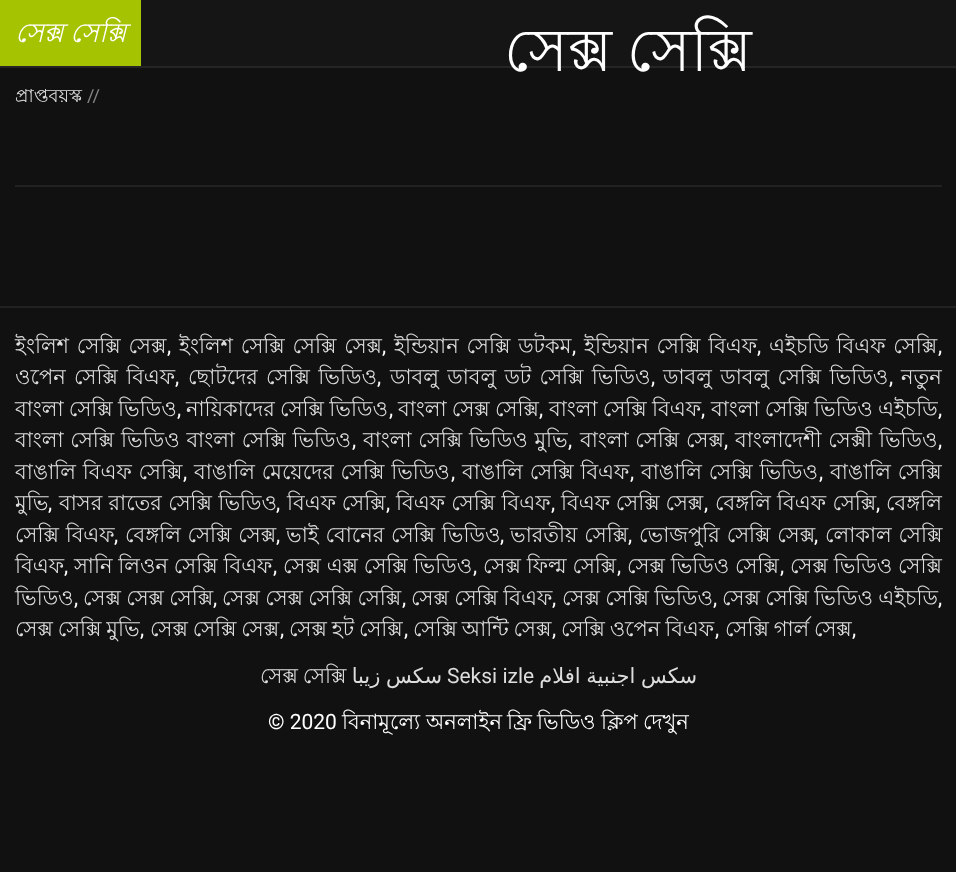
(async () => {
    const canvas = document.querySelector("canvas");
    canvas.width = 956;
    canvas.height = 872;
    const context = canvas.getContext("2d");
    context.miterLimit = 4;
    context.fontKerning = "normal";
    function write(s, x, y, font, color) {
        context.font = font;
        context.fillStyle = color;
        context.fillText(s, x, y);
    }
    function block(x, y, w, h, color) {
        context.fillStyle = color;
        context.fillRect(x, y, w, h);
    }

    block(0, 0, 956, 872, "rgb(17, 17, 17)");
    block(141, 0, 815, 66, "rgb(21, 21, 21)");
    block(0, 66, 956, 2, "rgb(37, 37, 37)");
    block(0, 0, 141, 66, "rgb(165, 195, 0)");
    context.wordSpacing = "-1px";
    write("সেক্স সেক্সি", 15, 42, "italic 27px Lohit Bengali", "rgb(255, 255, 255)");
    context.wordSpacing = "-2px";
    write("সেক্স সেক্সি", 504, 71, "60px Lohit Bengali", "rgb(255, 255, 255)");
    context.wordSpacing = "0px";
    write("প্রাপ্তবয়স্ক", 15, 102, "18px Lohit Bengali", "rgb(221, 221, 221)");
    write("//", 87, 102, "18px Roboto", "rgb(136, 136, 136)");
    block(15, 185, 927, 2, "rgb(34, 34, 34)");
    block(0, 306, 956, 2, "rgb(34, 34, 34)");
    context.wordSpacing = "2px";
    write("ইংলিশ সেক্সি সেক্স", 15, 353, "21px Lohit Bengali", "rgb(221, 221, 221)");
    context.wordSpacing = "0px";
    write(",", 167, 353, "21px Roboto", "rgb(255, 255, 255)");
    context.wordSpacing = "2px";
    write("ইংলিশ সেক্সি সেক্সি সেক্স", 179, 353, "21px Lohit Bengali", "rgb(221, 221, 221)");
    context.wordSpacing = "0px";
    write(",", 382, 353, "21px Roboto", "rgb(255, 255, 255)");
    context.wordSpacing = "2px";
    write("ইন্ডিয়ান সেক্সি ডটকম", 394, 353, "21px Lohit Bengali", "rgb(221, 221, 221)");
    context.wordSpacing = "0px";
    write(",", 572, 353, "21px Roboto", "rgb(255, 255, 255)");
    context.wordSpacing = "2px";
    write("ইন্ডিয়ান সেক্সি বিএফ", 584, 353, "21px Lohit Bengali", "rgb(221, 221, 221)");
    context.wordSpacing = "0px";
    write(",", 757, 353, "21px Roboto", "rgb(255, 255, 255)");
    context.wordSpacing = "2px";
    write("এইচডি বিএফ সেক্সি", 769, 353, "21px Lohit Bengali", "rgb(221, 221, 221)");
    context.wordSpacing = "0px";
    write(",", 938, 353, "21px Roboto", "rgb(255, 255, 255)");
    context.wordSpacing = "2.5px";
    write("ওপেন সেক্সি বিএফ", 15, 384, "21px Lohit Bengali", "rgb(221, 221, 221)");
    context.wordSpacing = "0px";
    write(",", 175, 384, "21px Roboto", "rgb(255, 255, 255)");
    context.wordSpacing = "2.5px";
    write("ছোটদের সেক্সি ভিডিও", 188, 384, "21px Lohit Bengali", "rgb(221, 221, 221)");
    context.wordSpacing = "0px";
    write(",", 377, 384, "21px Roboto", "rgb(255, 255, 255)");
    context.wordSpacing = "2.5px";
    write("ডাবলু ডাবলু ডট সেক্সি ভিডিও", 390, 384, "21px Lohit Bengali", "rgb(221, 221, 221)");
    context.wordSpacing = "0px";
    write(",", 651, 384, "21px Roboto", "rgb(255, 255, 255)");
    context.wordSpacing = "2.5px";
    write("ডাবলু ডাবলু সেক্সি ভিডিও", 663, 384, "21px Lohit Bengali", "rgb(221, 221, 221)");
    context.wordSpacing = "0px";
    write(",", 889, 384, "21px Roboto", "rgb(255, 255, 255)");
    write("নতুন", 901, 384, "21px Lohit Bengali", "rgb(221, 221, 221)");
    context.wordSpacing = "-0.5px";
    write("বাংলা সেক্সি ভিডিও", 15, 416, "21px Lohit Bengali", "rgb(221, 221, 221)");
    context.wordSpacing = "0px";
    write(",", 177, 416, "21px Roboto", "rgb(255, 255, 255)");
    context.wordSpacing = "-0.5px";
    write("নায়িকাদের সেক্সি ভিডিও", 186, 416, "21px Lohit Bengali", "rgb(221, 221, 221)");
    context.wordSpacing = "0px";
    write(",", 389, 416, "21px Roboto", "rgb(255, 255, 255)");
    context.wordSpacing = "-0.5px";
    write("বাংলা সেক্স সেক্সি", 398, 416, "21px Lohit Bengali", "rgb(221, 221, 221)");
    context.wordSpacing = "0px";
    write(",", 539, 416, "21px Roboto", "rgb(255, 255, 255)");
    context.wordSpacing = "-0.5px";
    write("বাংলা সেক্সি বিএফ", 549, 416, "21px Lohit Bengali", "rgb(221, 221, 221)");
    context.wordSpacing = "0px";
    write(",", 701, 416, "21px Roboto", "rgb(255, 255, 255)");
    context.wordSpacing = "-0.5px";
    write("বাংলা সেক্সি ভিডিও এইচডি", 711, 416, "21px Lohit Bengali", "rgb(221, 221, 221)");
    context.wordSpacing = "0px";
    write(",", 938, 416, "21px Roboto", "rgb(255, 255, 255)");
    context.wordSpacing = "1px";
    write("বাংলা সেক্সি ভিডিও বাংলা সেক্সি ভিডিও", 15, 447, "21px Lohit Bengali", "rgb(221, 221, 221)");
    context.wordSpacing = "0px";
    write(",", 352, 447, "21px Roboto", "rgb(255, 255, 255)");
    context.wordSpacing = "1px";
    write("বাংলা সেক্সি ভিডিও মুভি", 363, 447, "21px Lohit Bengali", "rgb(221, 221, 221)");
    context.wordSpacing = "0px";
    write(",", 568, 447, "21px Roboto", "rgb(255, 255, 255)");
    context.wordSpacing = "1px";
    write("বাংলা সেক্সি সেক্স", 580, 447, "21px Lohit Bengali", "rgb(221, 221, 221)");
    context.wordSpacing = "0px";
    write(",", 724, 447, "21px Roboto", "rgb(255, 255, 255)");
    context.wordSpacing = "1px";
    write("বাংলাদেশী সেক্সী ভিডিও", 735, 447, "21px Lohit Bengali", "rgb(221, 221, 221)");
    context.wordSpacing = "0px";
    write(",", 938, 447, "21px Roboto", "rgb(255, 255, 255)");
    context.wordSpacing = "1px";
    write("বাঙালি বিএফ সেক্সি", 15, 479, "21px Lohit Bengali", "rgb(221, 221, 221)");
    context.wordSpacing = "0px";
    write(",", 183, 479, "21px Roboto", "rgb(255, 255, 255)");
    context.wordSpacing = "1px";
    write("বাঙালি মেয়েদের সেক্সি ভিডিও", 194, 479, "21px Lohit Bengali", "rgb(221, 221, 221)");
    context.wordSpacing = "0px";
    write(",", 451, 479, "21px Roboto", "rgb(255, 255, 255)");
    context.wordSpacing = "1px";
    write("বাঙালি সেক্সি বিএফ", 462, 479, "21px Lohit Bengali", "rgb(221, 221, 221)");
    context.wordSpacing = "0px";
    write(",", 630, 479, "21px Roboto", "rgb(255, 255, 255)");
    context.wordSpacing = "1px";
    write("বাঙালি সেক্সি ভিডিও", 641, 479, "21px Lohit Bengali", "rgb(221, 221, 221)");
    context.wordSpacing = "0px";
    write(",", 819, 479, "21px Roboto", "rgb(255, 255, 255)");
    context.wordSpacing = "1px";
    write("বাঙালি সেক্সি", 830, 479, "21px Lohit Bengali", "rgb(221, 221, 221)");
    context.wordSpacing = "0px";
    write("মুভি", 15, 510, "21px Lohit Bengali", "rgb(221, 221, 221)");
    write(",", 48, 510, "21px Roboto", "rgb(255, 255, 255)");
    context.wordSpacing = "0.5px";
    write("বাসর রাতের সেক্সি ভিডিও", 59, 510, "21px Lohit Bengali", "rgb(221, 221, 221)");
    context.wordSpacing = "0px";
    write(",", 276, 510, "21px Roboto", "rgb(255, 255, 255)");
    write("বিএফ সেক্সি", 287, 510, "21px Lohit Bengali", "rgb(221, 221, 221)");
    write(",", 386, 510, "21px Roboto", "rgb(255, 255, 255)");
    context.wordSpacing = "0.5px";
    write("বিএফ সেক্সি বিএফ", 396, 510, "21px Lohit Bengali", "rgb(221, 221, 221)");
    context.wordSpacing = "0px";
    write(",", 551, 510, "21px Roboto", "rgb(255, 255, 255)");
    write("বিএফ সেক্সি সেক্স", 561, 510, "21px Lohit Bengali", "rgb(221, 221, 221)");
    write(",", 704, 510, "21px Roboto", "rgb(255, 255, 255)");
    context.wordSpacing = "0.5px";
    write("বেঙ্গলি বিএফ সেক্সি", 715, 510, "21px Lohit Bengali", "rgb(221, 221, 221)");
    context.wordSpacing = "0px";
    write(",", 876, 510, "21px Roboto", "rgb(255, 255, 255)");
    write("বেঙ্গলি", 886, 510, "21px Lohit Bengali", "rgb(221, 221, 221)");
    context.wordSpacing = "1px";
    write("সেক্সি বিএফ", 15, 542, "21px Lohit Bengali", "rgb(221, 221, 221)");
    context.wordSpacing = "0px";
    write(",", 114, 542, "21px Roboto", "rgb(255, 255, 255)");
    context.wordSpacing = "1px";
    write("বেঙ্গলি সেক্সি সেক্স", 125, 542, "21px Lohit Bengali", "rgb(221, 221, 221)");
    context.wordSpacing = "0px";
    write(",", 276, 542, "21px Roboto", "rgb(255, 255, 255)");
    context.wordSpacing = "1px";
    write("ভাই বোনের সেক্সি ভিডিও", 286, 542, "21px Lohit Bengali", "rgb(221, 221, 221)");
    context.wordSpacing = "0px";
    write(",", 500, 542, "21px Roboto", "rgb(255, 255, 255)");
    context.wordSpacing = "1px";
    write("ভারতীয় সেক্সি", 510, 542, "21px Lohit Bengali", "rgb(221, 221, 221)");
    context.wordSpacing = "0px";
    write(",", 628, 542, "21px Roboto", "rgb(255, 255, 255)");
    context.wordSpacing = "1px";
    write("ভোজপুরি সেক্সি সেক্স", 639, 542, "21px Lohit Bengali", "rgb(221, 221, 221)");
    context.wordSpacing = "0px";
    write(",", 814, 542, "21px Roboto", "rgb(255, 255, 255)");
    context.wordSpacing = "1px";
    write("লোকাল সেক্সি", 825, 542, "21px Lohit Bengali", "rgb(221, 221, 221)");
    context.wordSpacing = "0px";
    write("বিএফ", 15, 573, "21px Lohit Bengali", "rgb(221, 221, 221)");
    write(",", 64, 573, "21px Roboto", "rgb(255, 255, 255)");
    write("সানি লিওন সেক্সি বিএফ", 74, 573, "21px Lohit Bengali", "rgb(221, 221, 221)");
    write(",", 273, 573, "21px Roboto", "rgb(255, 255, 255)");
    write("সেক্স এক্স সেক্সি ভিডিও", 283, 573, "21px Lohit Bengali", "rgb(221, 221, 221)");
    write(",", 473, 573, "21px Roboto", "rgb(255, 255, 255)");
    write("সেক্স ফিল্ম সেক্সি", 483, 573, "21px Lohit Bengali", "rgb(221, 221, 221)");
    write(",", 617, 573, "21px Roboto", "rgb(255, 255, 255)");
    write("সেক্স ভিডিও সেক্সি", 627, 573, "21px Lohit Bengali", "rgb(221, 221, 221)");
    write(",", 780, 573, "21px Roboto", "rgb(255, 255, 255)");
    write("সেক্স ভিডিও সেক্সি", 790, 573, "21px Lohit Bengali", "rgb(221, 221, 221)");
    write("ভিডিও", 15, 605, "21px Lohit Bengali", "rgb(221, 221, 221)");
    write(",", 74, 605, "21px Roboto", "rgb(255, 255, 255)");
    context.wordSpacing = "-0.5px";
    write("সেক্স সেক্স সেক্সি", 83, 605, "21px Lohit Bengali", "rgb(221, 221, 221)");
    context.wordSpacing = "0px";
    write(",", 213, 605, "21px Roboto", "rgb(255, 255, 255)");
    context.wordSpacing = "-0.5px";
    write("সেক্স সেক্স সেক্সি সেক্সি", 222, 605, "21px Lohit Bengali", "rgb(221, 221, 221)");
    context.wordSpacing = "0px";
    write(",", 402, 605, "21px Roboto", "rgb(255, 255, 255)");
    context.wordSpacing = "-0.5px";
    write("সেক্স সেক্সি বিএফ", 411, 605, "21px Lohit Bengali", "rgb(221, 221, 221)");
    context.wordSpacing = "0px";
    write(",", 552, 605, "21px Roboto", "rgb(255, 255, 255)");
    context.wordSpacing = "-0.5px";
    write("সেক্স সেক্সি ভিডিও", 562, 605, "21px Lohit Bengali", "rgb(221, 221, 221)");
    context.wordSpacing = "0px";
    write(",", 713, 605, "21px Roboto", "rgb(255, 255, 255)");
    context.wordSpacing = "-0.5px";
    write("সেক্স সেক্সি ভিডিও এইচডি", 722, 605, "21px Lohit Bengali", "rgb(221, 221, 221)");
    context.wordSpacing = "0px";
    write(",", 938, 605, "21px Roboto", "rgb(255, 255, 255)");
    context.wordSpacing = "-1px";
    write("সেক্স সেক্সি মুভি", 15, 636, "21px Lohit Bengali", "rgb(221, 221, 221)");
    context.wordSpacing = "0px";
    write(",", 140, 636, "21px Roboto", "rgb(255, 255, 255)");
    context.wordSpacing = "-1px";
    write("সেক্স সেক্সি সেক্স", 150, 636, "21px Lohit Bengali", "rgb(221, 221, 221)");
    context.wordSpacing = "0px";
    write(",", 280, 636, "21px Roboto", "rgb(255, 255, 255)");
    context.wordSpacing = "-1px";
    write("সেক্স হট সেক্সি", 289, 636, "21px Lohit Bengali", "rgb(221, 221, 221)");
    context.wordSpacing = "0px";
    write(",", 404, 636, "21px Roboto", "rgb(255, 255, 255)");
    context.wordSpacing = "-1px";
    write("সেক্সি আন্টি সেক্স", 413, 636, "21px Lohit Bengali", "rgb(221, 221, 221)");
    context.wordSpacing = "0px";
    write(",", 552, 636, "21px Roboto", "rgb(255, 255, 255)");
    context.wordSpacing = "-1px";
    write("সেক্সি ওপেন বিএফ", 561, 636, "21px Lohit Bengali", "rgb(221, 221, 221)");
    context.wordSpacing = "0px";
    write(",", 715, 636, "21px Roboto", "rgb(255, 255, 255)");
    context.wordSpacing = "-1px";
    write("সেক্সি গার্ল সেক্স", 725, 636, "21px Lohit Bengali", "rgb(221, 221, 221)");
    context.wordSpacing = "0px";
    write(",", 852, 636, "21px Roboto", "rgb(255, 255, 255)");
    context.wordSpacing = "-1px";
    write("সেক্স সেক্সি", 260, 683, "21px Lohit Bengali", "rgb(221, 221, 221)");
    context.direction = "rtl";
    write("سکس زیبا", 442, 683, "21px DejaVu Sans", "rgb(221, 221, 221)");
    context.wordSpacing = "0px";
    context.direction = "ltr";
    write("Seksi izle", 447, 683, "21px Roboto", "rgb(221, 221, 221)");
    context.wordSpacing = "-1px";
    context.direction = "rtl";
    write("سكس اجنبية افلام", 697, 683, "21px DejaVu Sans", "rgb(221, 221, 221)");
    context.wordSpacing = "0px";
    context.direction = "ltr";
    write("© 2020", 268, 729, "21px Roboto", "rgb(255, 255, 255)");
    write("বিনামূল্যে", 342, 729, "21px Lohit Bengali", "rgb(255, 255, 255)");
    write("অনলাইন", 426, 729, "21px Lohit Bengali", "rgb(255, 255, 255)");
    write("ফ্রি", 507, 729, "21px Lohit Bengali", "rgb(255, 255, 255)");
    write("ভিডিও", 537, 729, "21px Lohit Bengali", "rgb(255, 255, 255)");
    write("ক্লিপ", 601, 729, "21px Lohit Bengali", "rgb(255, 255, 255)");
    write("দেখুন", 643, 729, "21px Lohit Bengali", "rgb(255, 255, 255)");
})();
